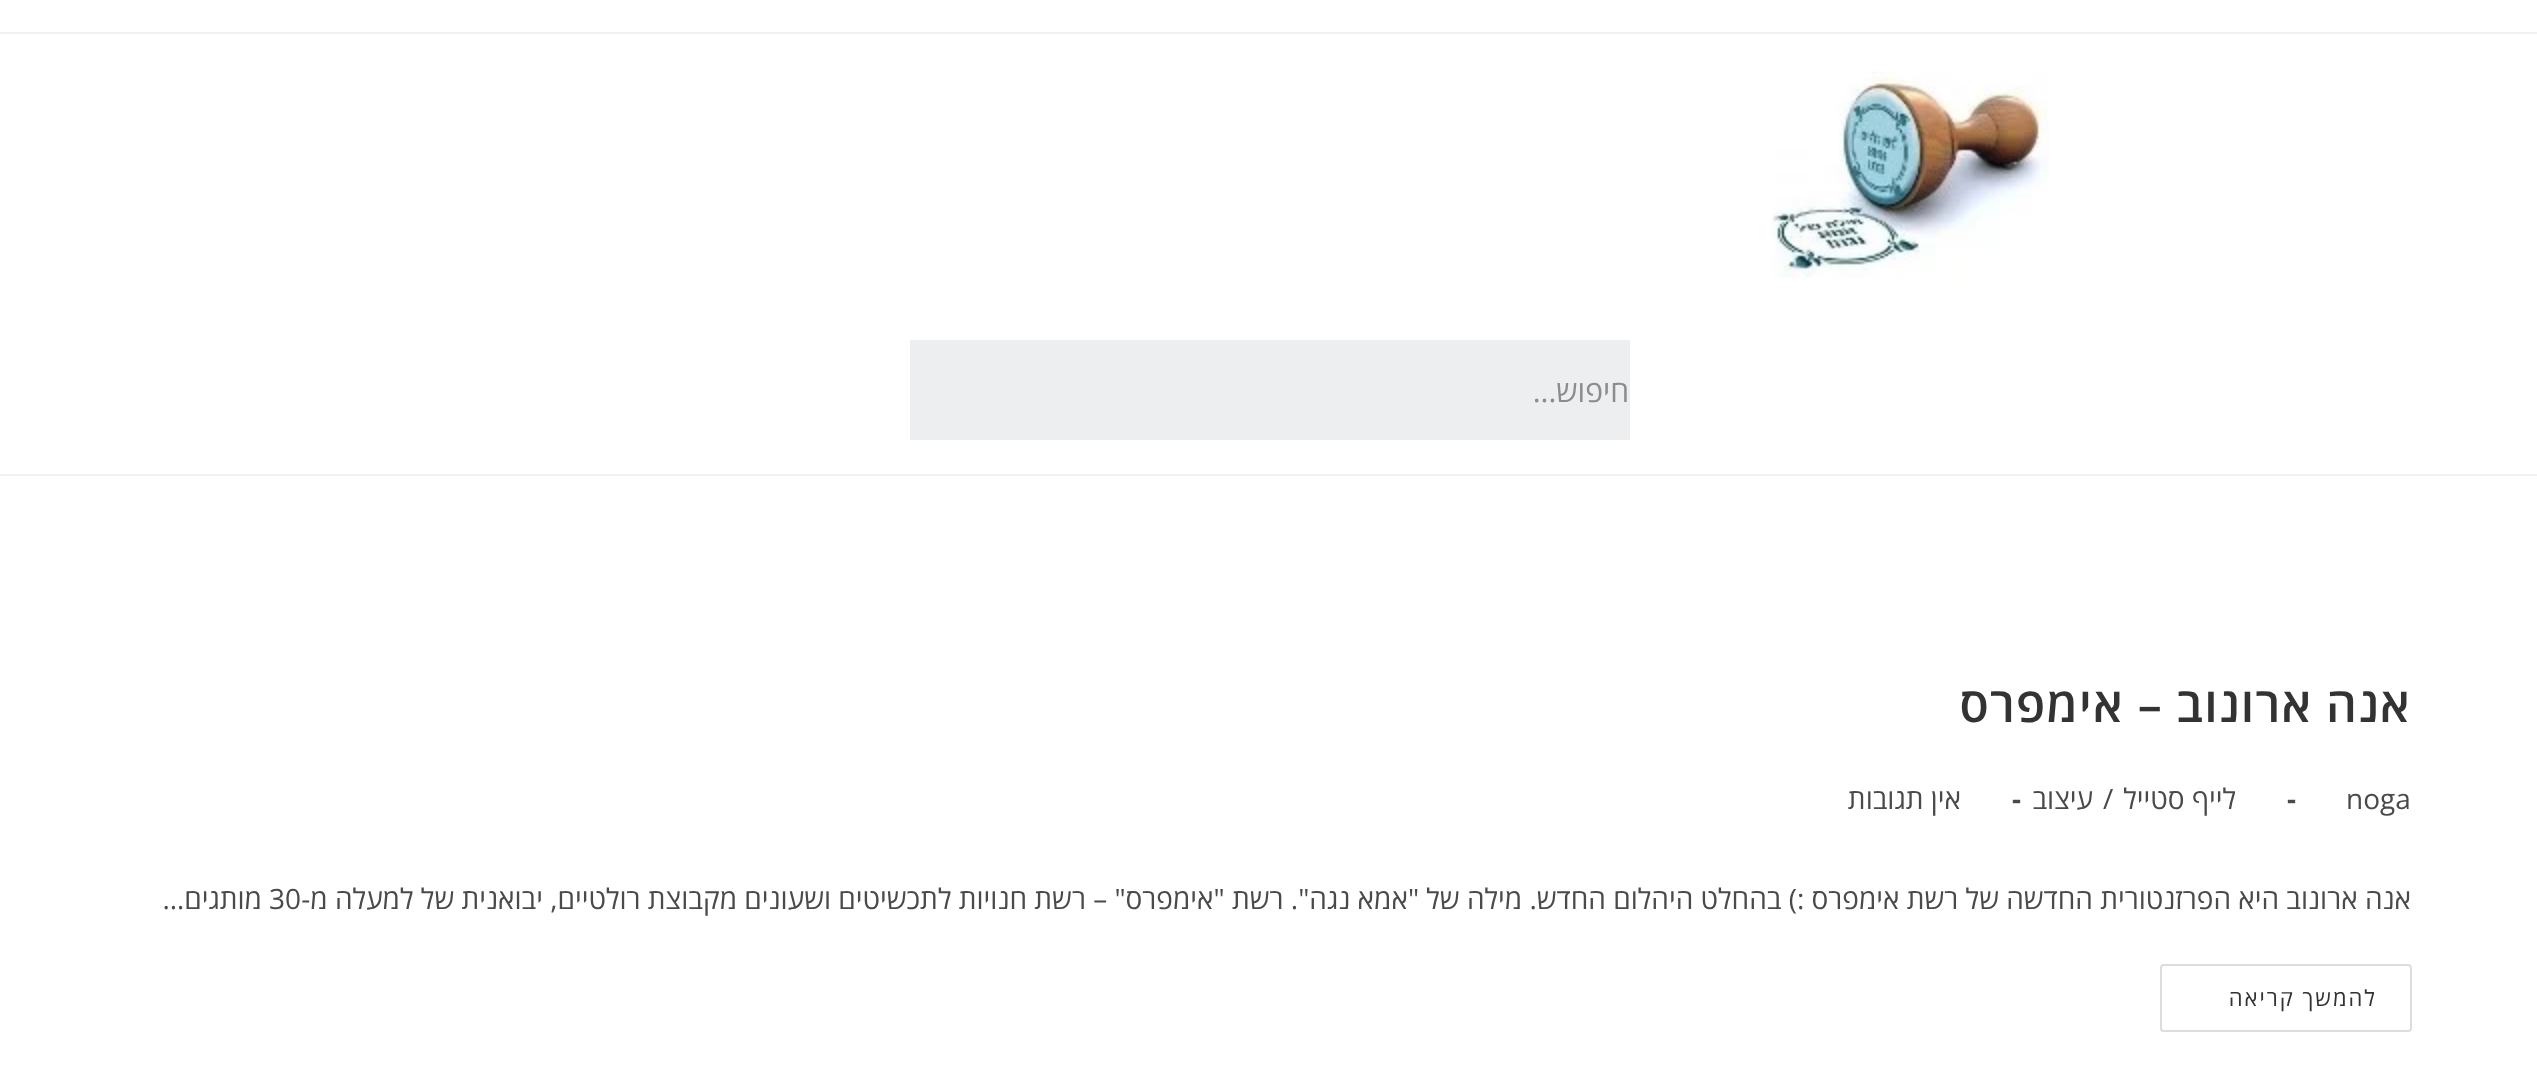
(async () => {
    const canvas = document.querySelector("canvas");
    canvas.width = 2537;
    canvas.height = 1090;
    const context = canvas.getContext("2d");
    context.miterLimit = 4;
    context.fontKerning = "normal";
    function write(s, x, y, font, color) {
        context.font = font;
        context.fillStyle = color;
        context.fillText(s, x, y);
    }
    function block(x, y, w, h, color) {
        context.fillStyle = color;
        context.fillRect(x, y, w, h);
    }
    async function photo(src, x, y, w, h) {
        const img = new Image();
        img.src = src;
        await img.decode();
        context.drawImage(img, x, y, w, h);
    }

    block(0, 0, 2537, 1090, "rgb(255, 255, 255)");
    block(0, 32, 2537, 2, "rgb(241, 241, 241)");
    block(0, 474, 2537, 2, "rgb(241, 241, 241)");
    await photo("media/1.png", 1771, 71, 278, 208);
    block(910, 340, 720, 100, "rgb(236, 238, 239)");
    context.direction = "rtl";
    write("חיפוש...", 1629, 402, "30px Open Sans", "rgb(139, 140, 140)");
    context.letterSpacing = "1.25px";
    write("אנה ארונוב – אימפרס", 2411, 722, "600 48px Open Sans", "rgb(51, 51, 51)");
    context.letterSpacing = "0px";
    context.direction = "ltr";
    write("noga", 2346, 809, "28px Open Sans", "rgb(74, 74, 74)");
    write("-", 2287, 809, "bold 28px Open Sans", "rgb(74, 74, 74)");
    context.direction = "rtl";
    write("לייף סטייל", 2236, 809, "28px Open Sans", "rgb(74, 74, 74)");
    context.direction = "ltr";
    write("/", 2103, 809, "28px Open Sans", "rgb(74, 74, 74)");
    context.direction = "rtl";
    write("עיצוב", 2093, 809, "28px Open Sans", "rgb(74, 74, 74)");
    context.direction = "ltr";
    write("-", 2012, 809, "bold 28px Open Sans", "rgb(74, 74, 74)");
    context.direction = "rtl";
    write("אין תגובות", 1961, 809, "28px Open Sans", "rgb(74, 74, 74)");
    write("אנה ארונוב היא הפרזנטורית החדשה של רשת אימפרס :) בהחלט היהלום החדש. מילה של \"אמא נגה\". רשת \"אימפרס\" – רשת חנויות לתכשיטים ושעונים מקבוצת רולטיים, יבואנית של למעלה מ-", 2411, 909, "28px Open Sans", "rgb(74, 74, 74)");
    context.direction = "ltr";
    write("30", 269, 909, "28px Open Sans", "rgb(74, 74, 74)");
    context.direction = "rtl";
    write("מותגים…", 262, 909, "28px Open Sans", "rgb(74, 74, 74)");
    context.beginPath();
    context.roundRect(2161, 965, 250, 66, 3);
    context.strokeStyle = "rgb(221, 221, 221)";
    context.lineWidth = 2;
    context.stroke();
    context.letterSpacing = "2px";
    write("להמשך קריאה", 2377, 1006, "22px Open Sans", "rgb(51, 51, 51)");
})();
